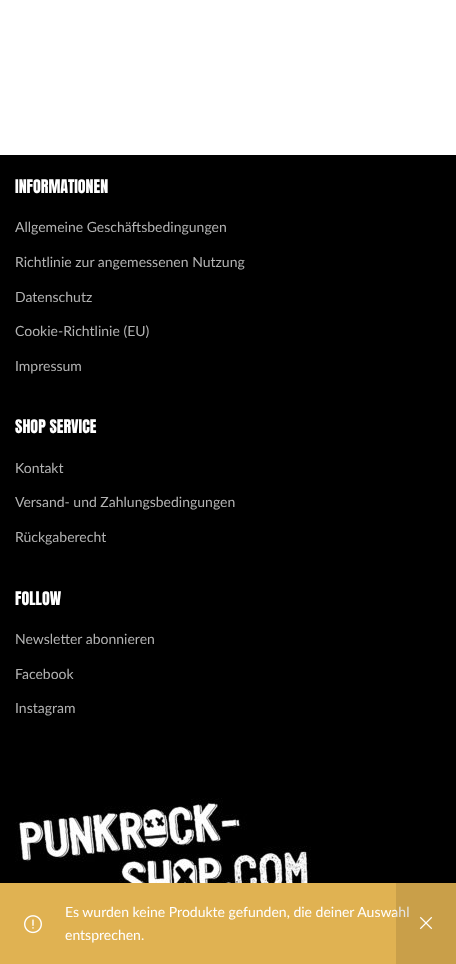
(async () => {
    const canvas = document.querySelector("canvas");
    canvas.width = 456;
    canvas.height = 964;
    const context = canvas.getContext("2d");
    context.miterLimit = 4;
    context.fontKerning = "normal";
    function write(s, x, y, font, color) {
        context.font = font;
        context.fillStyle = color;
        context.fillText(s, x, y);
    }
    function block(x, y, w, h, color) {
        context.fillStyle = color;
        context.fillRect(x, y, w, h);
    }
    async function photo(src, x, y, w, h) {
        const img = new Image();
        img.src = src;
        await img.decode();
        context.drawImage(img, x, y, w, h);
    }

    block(0, 0, 456, 964, "rgb(255, 255, 255)");
    block(0, 155, 456, 728, "rgb(0, 0, 0)");
    write("INFORMATIONEN", 15, 193, "16px Anton", "rgb(255, 255, 255)");
    write("Allgemeine Geschäftsbedingungen", 15, 232, "14px Lato", "rgb(179, 179, 179)");
    write("Richtlinie zur angemessenen Nutzung", 15, 267, "14px Lato", "rgb(179, 179, 179)");
    write("Datenschutz", 15, 302, "14px Lato", "rgb(179, 179, 179)");
    write("Cookie-Richtlinie (EU)", 15, 336, "14px Lato", "rgb(179, 179, 179)");
    write("Impressum", 15, 371, "14px Lato", "rgb(179, 179, 179)");
    write("SHOP SERVICE", 15, 433, "16px Anton", "rgb(255, 255, 255)");
    write("Kontakt", 15, 473, "14px Lato", "rgb(179, 179, 179)");
    write("Versand- und Zahlungsbedingungen", 15, 507, "14px Lato", "rgb(179, 179, 179)");
    write("Rückgaberecht", 15, 542, "14px Lato", "rgb(179, 179, 179)");
    write("FOLLOW", 15, 605, "16px Anton", "rgb(255, 255, 255)");
    write("Newsletter abonnieren", 15, 644, "14px Lato", "rgb(179, 179, 179)");
    write("Facebook", 15, 679, "14px Lato", "rgb(179, 179, 179)");
    write("Instagram", 15, 713, "14px Lato", "rgb(179, 179, 179)");
    await photo("media/1.png", 15, 798, 296, 85);
    block(0, 883, 456, 81, "rgb(224, 178, 82)");
    write("Es wurden keine Produkte gefunden, die deiner Auswahl", 65, 917, "14px Lato", "rgb(255, 255, 255)");
    block(396, 883, 60, 81, "rgba(0, 0, 0, 0.1)");
    await photo("media/2.png", 419, 916, 14, 14);
    await photo("media/3.png", 24, 915, 18, 19);
    write("entsprechen.", 65, 940, "14px Lato", "rgb(255, 255, 255)");
})();
